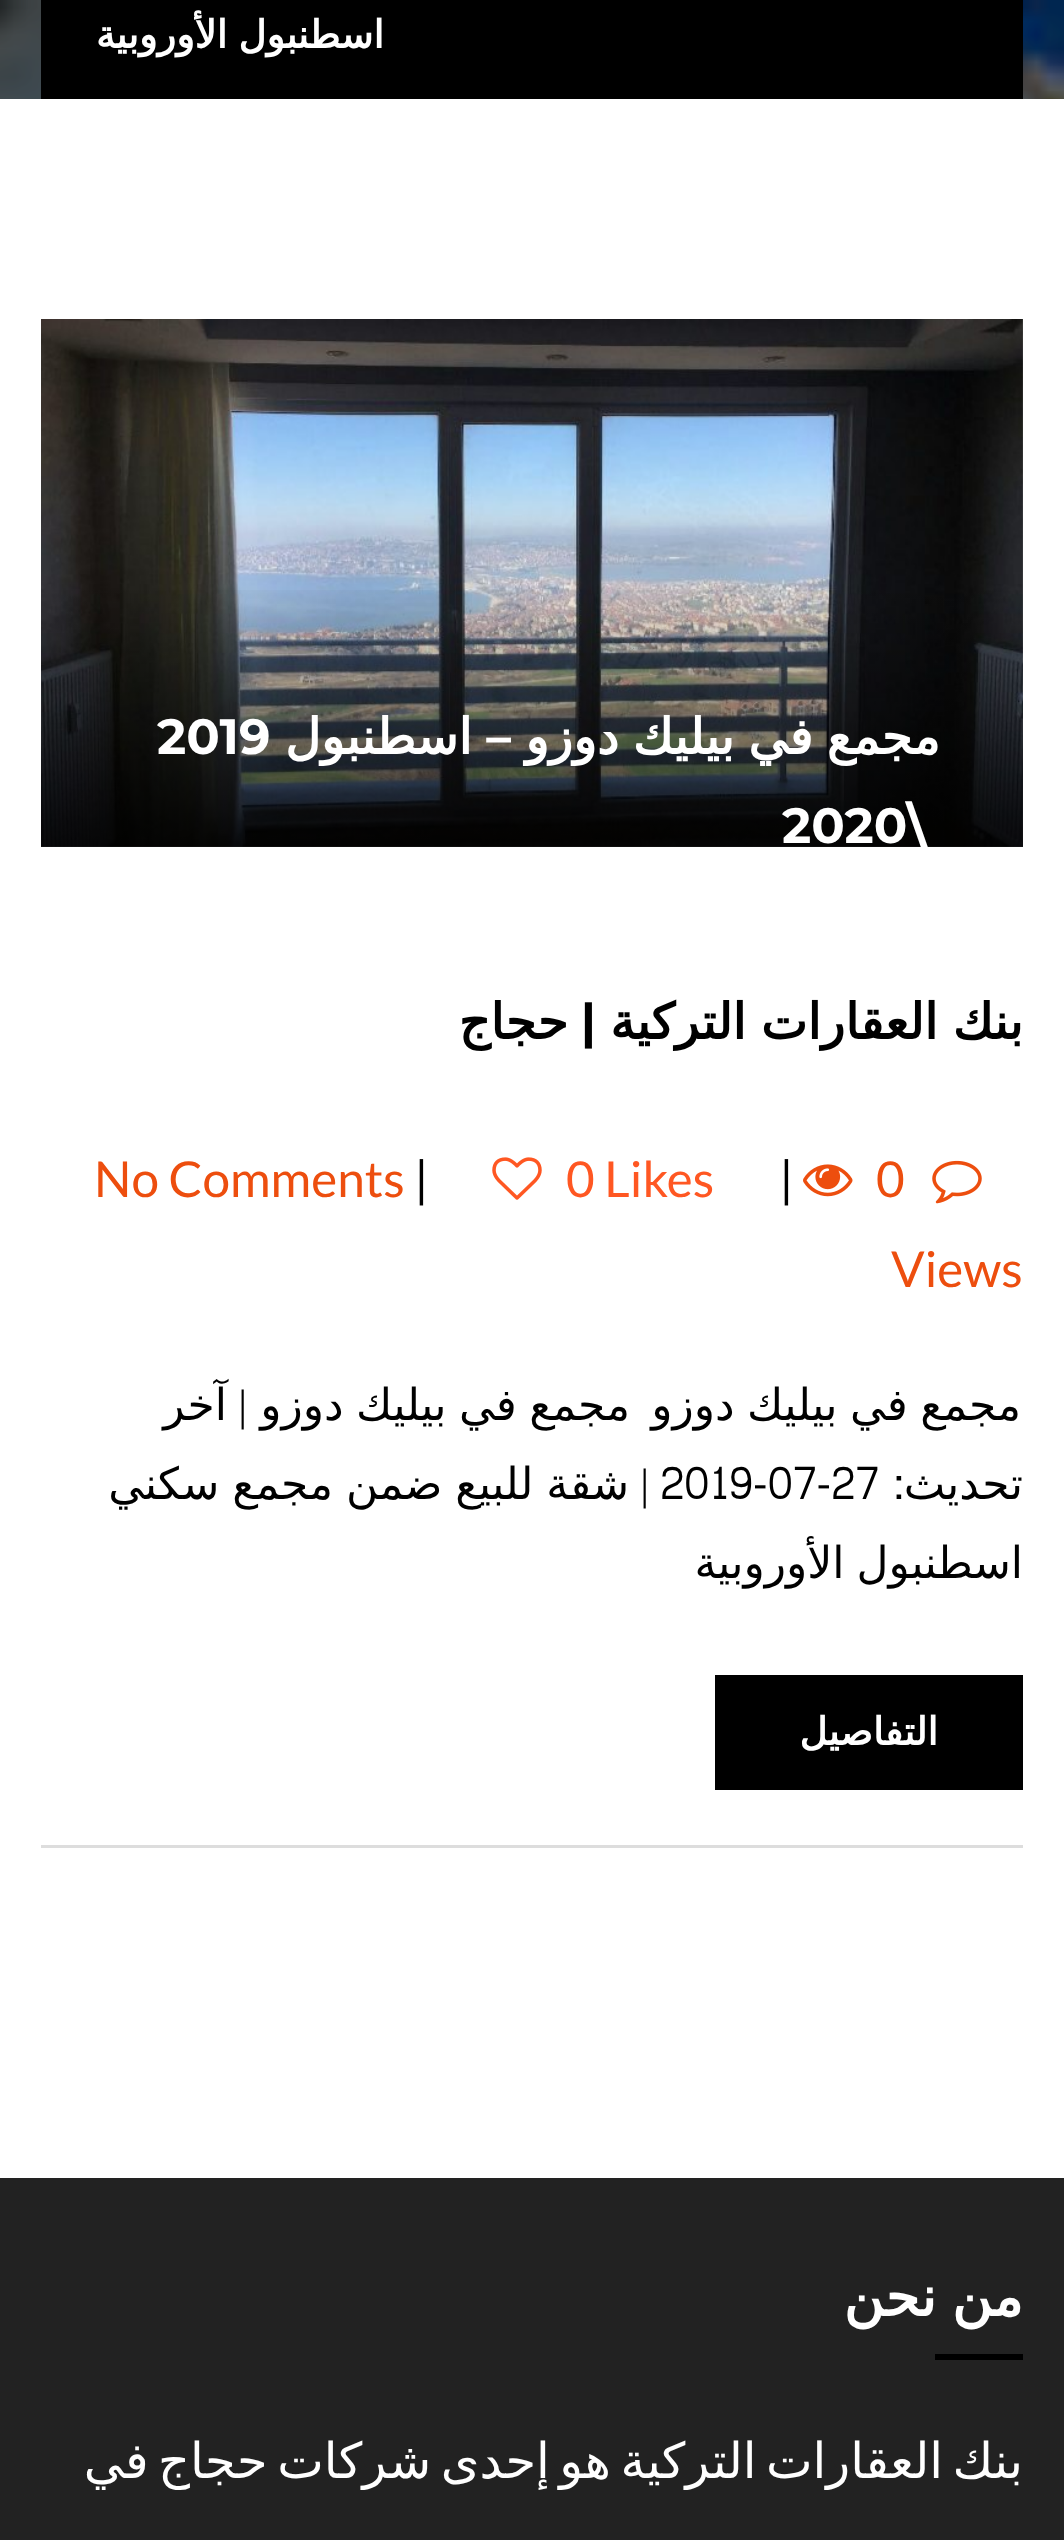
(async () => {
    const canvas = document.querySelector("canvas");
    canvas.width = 1064;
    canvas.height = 2540;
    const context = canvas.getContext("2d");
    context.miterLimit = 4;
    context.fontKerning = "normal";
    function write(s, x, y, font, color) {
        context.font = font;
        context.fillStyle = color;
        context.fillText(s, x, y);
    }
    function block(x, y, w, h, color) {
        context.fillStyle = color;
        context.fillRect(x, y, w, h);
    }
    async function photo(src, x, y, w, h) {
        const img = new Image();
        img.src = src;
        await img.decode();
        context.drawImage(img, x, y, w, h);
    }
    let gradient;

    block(0, 0, 1064, 2540, "rgb(255, 255, 255)");
    await photo("media/1.png", 0, 0, 1064, 99);
    block(41, 0, 982, 99, "rgb(0, 0, 0)");
    context.wordSpacing = "-1px";
    context.direction = "rtl";
    write("اسطنبول الأوروبية", 384, 48, "bold 38.5px DejaVu Sans", "rgb(255, 255, 255)");
    block(41, 1845, 982, 3, "rgb(221, 221, 221)");
    await photo("media/2.png", 41, 319, 982, 528);
    gradient = context.createLinearGradient(532, 583, 532, 847);
    gradient.addColorStop(0, "rgba(0, 0, 0, 0)");
    gradient.addColorStop(1, "rgba(0, 0, 0, 0.8)");
    context.fillStyle = gradient;
    context.fillRect(41, 590, 982, 257);
    context.wordSpacing = "-2px";
    write("مجمع في بيليك دوزو", 940, 754, "bold 49.5px DejaVu Sans", "rgb(255, 255, 255)");
    context.wordSpacing = "0px";
    write("–", 511, 754, "bold 49.5px Montserrat", "rgb(255, 255, 255)");
    write("اسطنبول", 472, 754, "bold 49.5px DejaVu Sans", "rgb(255, 255, 255)");
    context.direction = "ltr";
    write("2019", 157, 754, "bold 49.5px Montserrat", "rgb(255, 255, 255)");
    write("2020", 782, 843, "bold 49.5px Montserrat", "rgb(255, 255, 255)");
    context.save();
    context.beginPath();
    context.rect(41, 319, 982, 528);
    context.clip();
    write("\\", 907, 843, "bold 49.5px Montserrat", "rgb(255, 255, 255)");
    context.restore();
    context.wordSpacing = "-1px";
    context.direction = "rtl";
    write("بنك العقارات التركية", 1023, 1039, "bold 49.5px DejaVu Sans", "rgb(0, 0, 0)");
    context.wordSpacing = "0px";
    write("|", 596, 1039, "bold 49.5px Montserrat", "rgb(0, 0, 0)");
    write("حجاج", 568, 1039, "bold 49.5px DejaVu Sans", "rgb(0, 0, 0)");
    context.direction = "ltr";
    write("0", 876, 1197, "49.5px Lato", "rgb(237, 78, 14)");
    await photo("media/3.png", 803, 1164, 50, 33);
    write("Views", 891, 1287, "49.5px Lato", "rgb(237, 78, 14)");
    write("|", 779, 1197, "49.5px Lato", "rgb(0, 0, 0)");
    write("0 Likes", 566, 1197, "49.5px Lato", "rgb(255, 87, 34)");
    await photo("media/4.png", 492, 1157, 50, 43);
    write("|", 414, 1197, "49.5px Lato", "rgb(0, 0, 0)");
    await photo("media/5.png", 932, 1160, 50, 44);
    write("No Comments", 94, 1197, "49.5px Lato", "rgb(237, 78, 14)");
    context.wordSpacing = "-1.5px";
    context.direction = "rtl";
    write("مجمع في بيليك دوزو", 1021, 1420, "44px DejaVu Sans", "rgb(0, 0, 0)");
    write("مجمع في بيليك دوزو", 630, 1420, "44px DejaVu Sans", "rgb(0, 0, 0)");
    context.wordSpacing = "0px";
    write("|", 247, 1420, "44px Liberation Serif", "rgb(0, 0, 0)");
    write("آخر", 227, 1420, "44px DejaVu Sans", "rgb(0, 0, 0)");
    write("تحديث", 1023, 1499, "44px DejaVu Sans", "rgb(0, 0, 0)");
    write(":", 904, 1499, "44px Content", "rgb(0, 0, 0)");
    context.direction = "ltr";
    write("2019-07-27", 660, 1499, "44px Content", "rgb(0, 0, 0)");
    context.direction = "rtl";
    write("|", 649, 1499, "44px Liberation Serif", "rgb(0, 0, 0)");
    context.wordSpacing = "-1px";
    write("شقة للبيع ضمن مجمع سكني", 629, 1499, "44px DejaVu Sans", "rgb(0, 0, 0)");
    context.wordSpacing = "-2px";
    write("اسطنبول الأوروبية", 1023, 1578, "44px DejaVu Sans", "rgb(0, 0, 0)");
    block(715, 1675, 308, 115, "rgb(0, 0, 0)");
    context.wordSpacing = "0px";
    write("التفاصيل", 938, 1745, "bold 38.5px DejaVu Sans", "rgb(255, 255, 255)");
    block(0, 2178, 1064, 362, "rgb(34, 34, 34)");
    context.wordSpacing = "-2px";
    write("من نحن", 1023, 2316, "bold 55px DejaVu Sans", "rgb(255, 255, 255)");
    block(935, 2354, 88, 6, "rgb(0, 0, 0)");
    context.wordSpacing = "-6.25px";
    write("بنك العقارات التركية هو إحدى شركات حجاج في", 1023, 2478, "49.5px DejaVu Sans", "rgb(255, 255, 255)");
})();
